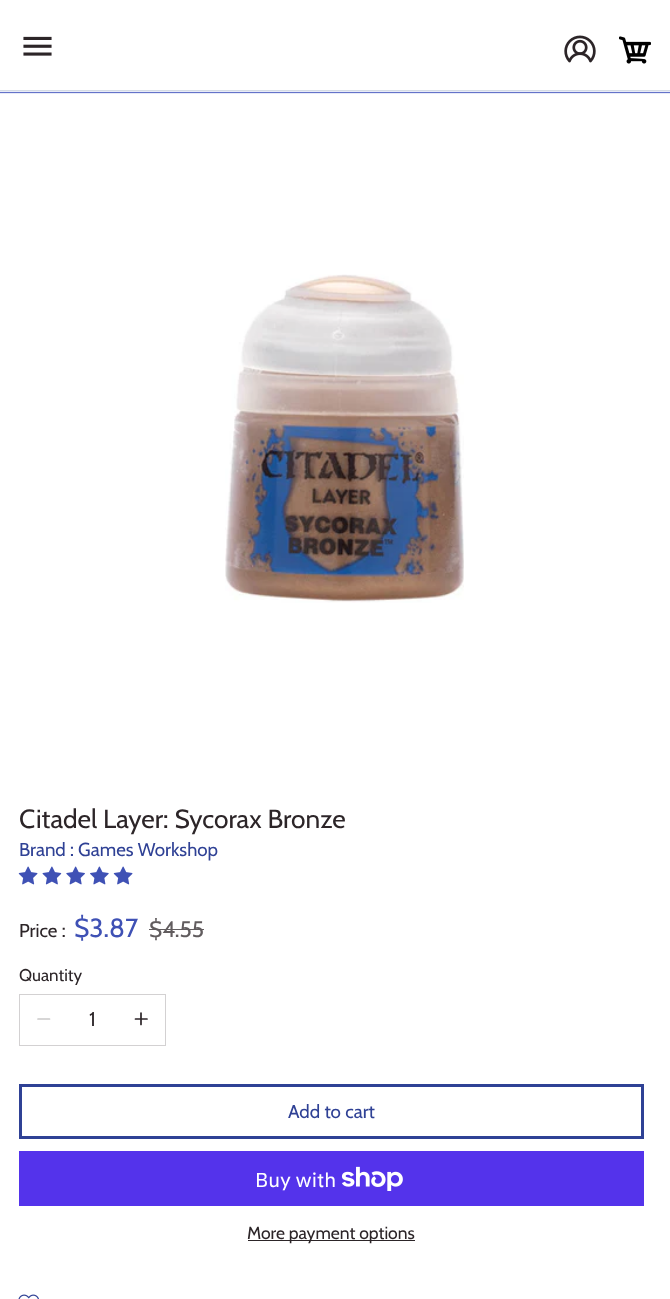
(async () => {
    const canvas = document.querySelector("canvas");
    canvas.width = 670;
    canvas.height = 1299;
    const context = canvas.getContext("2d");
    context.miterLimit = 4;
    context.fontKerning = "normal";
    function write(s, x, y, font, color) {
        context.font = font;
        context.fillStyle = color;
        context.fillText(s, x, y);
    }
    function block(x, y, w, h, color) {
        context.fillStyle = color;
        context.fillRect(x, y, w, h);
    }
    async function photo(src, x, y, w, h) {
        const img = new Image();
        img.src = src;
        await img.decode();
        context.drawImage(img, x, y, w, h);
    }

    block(0, 0, 670, 1299, "rgb(255, 255, 255)");
    block(0, 90, 670, 1, "rgb(212, 219, 229)");
    await photo("media/1.png", 23, 36, 29, 20);
    await photo("media/2.png", 564, 35, 32, 28);
    await photo("media/3.png", 619, 36, 32, 28);
    block(0, 92, 670, 1, "rgb(100, 115, 201)");
    block(0, 91, 670, 1, "rgb(232, 235, 247)");
    block(0, 93, 670, 1, "rgb(232, 235, 247)");
    await photo("media/4.png", 225, 274, 239, 329);
    write("Citadel Layer: Sycorax Bronze", 19, 828, "26.25px Cabin", "rgb(44, 37, 40)");
    write("Brand : Games Workshop", 19, 856, "18.75px Cabin", "rgb(47, 65, 149)");
    await photo("media/5.png", 18, 866, 20, 19);
    await photo("media/6.png", 42, 866, 20, 19);
    await photo("media/7.png", 66, 866, 19, 19);
    await photo("media/8.png", 90, 866, 19, 19);
    await photo("media/5.png", 113, 866, 20, 19);
    write("Price :", 19, 937, "18.75px Cabin", "rgb(44, 37, 40)");
    write("$3.87", 74, 937, "26.25px Cabin", "rgb(63, 81, 181)");
    write("$4.55", 149, 937, "22.5px Cabin", "rgb(97, 92, 94)");
    block(149, 929, 55, 1, "rgb(97, 92, 94)");
    write("Quantity", 19, 981, "17px Cabin", "rgb(44, 37, 40)");
    context.strokeStyle = "rgb(211, 209, 210)";
    context.strokeRect(19.5, 994.5, 146, 51);
    context.beginPath();
    context.moveTo(38, 1019);
    context.lineTo(49.5, 1019);
    context.strokeStyle = "rgb(202, 201, 201)";
    context.lineWidth = 1.7;
    context.lineCap = "round";
    context.lineJoin = "round";
    context.stroke();
    write("1", 89, 1026, "20px Cabin", "rgb(44, 37, 40)");
    context.beginPath();
    context.moveTo(141, 1013);
    context.lineTo(141, 1024.5);
    context.moveTo(135.5, 1019);
    context.lineTo(147, 1019);
    context.strokeStyle = "rgb(44, 37, 40)";
    context.stroke();
    context.strokeStyle = "rgb(47, 65, 149)";
    context.lineWidth = 3;
    context.lineJoin = "miter";
    context.strokeRect(20.5, 1085.5, 622, 52);
    write("Add to cart", 288, 1118, "18.75px Cabin", "rgb(47, 65, 149)");
    block(19, 1151, 625, 55, "rgb(84, 51, 235)");
    write("Buy with", 255, 1187, "20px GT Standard", "rgb(255, 255, 255)");
    await photo("media/9.png", 341, 1166, 62, 25);
    block(248, 1240, 167, 1, "rgb(44, 37, 40)");
    write("More payment options", 247, 1239, "17.5px Cabin", "rgb(44, 37, 40)");
    await photo("media/10.png", 18, 1294, 21, 5);
})();
